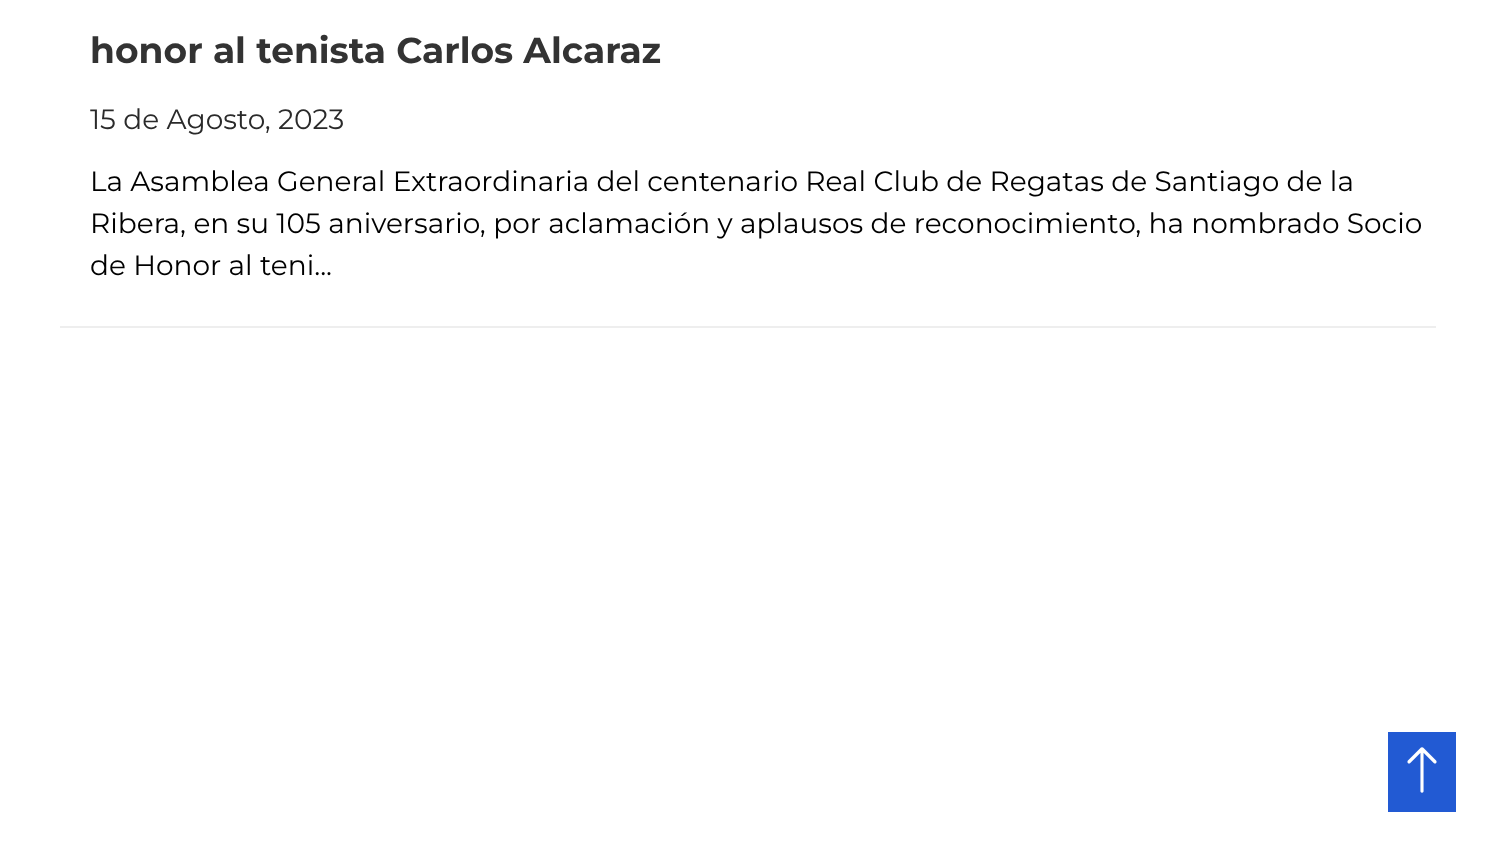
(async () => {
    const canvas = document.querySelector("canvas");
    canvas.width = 1496;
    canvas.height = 852;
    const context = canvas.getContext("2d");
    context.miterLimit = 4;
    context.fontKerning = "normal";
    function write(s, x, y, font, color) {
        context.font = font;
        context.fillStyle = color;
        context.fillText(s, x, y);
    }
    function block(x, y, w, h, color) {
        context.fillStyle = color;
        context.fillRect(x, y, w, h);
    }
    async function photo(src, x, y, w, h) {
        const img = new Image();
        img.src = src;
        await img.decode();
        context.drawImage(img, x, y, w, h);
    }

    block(0, 0, 1496, 852, "rgb(255, 255, 255)");
    write("honor al tenista Carlos Alcaraz", 90, 63, "bold 36px Montserrat", "rgb(51, 51, 51)");
    write("15 de Agosto, 2023", 90, 129, "100 28px Montserrat", "rgb(42, 42, 42)");
    write("La Asamblea General Extraordinaria del centenario Real Club de Regatas de Santiago de la", 90, 191, "100 28px Montserrat", "rgb(0, 0, 0)");
    write("Ribera, en su 105 aniversario, por aclamación y aplausos de reconocimiento, ha nombrado Socio", 90, 233, "100 28px Montserrat", "rgb(0, 0, 0)");
    write("de Honor al teni...", 90, 275, "100 28px Montserrat", "rgb(0, 0, 0)");
    block(60, 326, 1376, 2, "rgb(238, 238, 238)");
    block(1388, 732, 68, 80, "rgb(34, 90, 211)");
    await photo("media/1.png", 1407, 747, 30, 46);
})();
